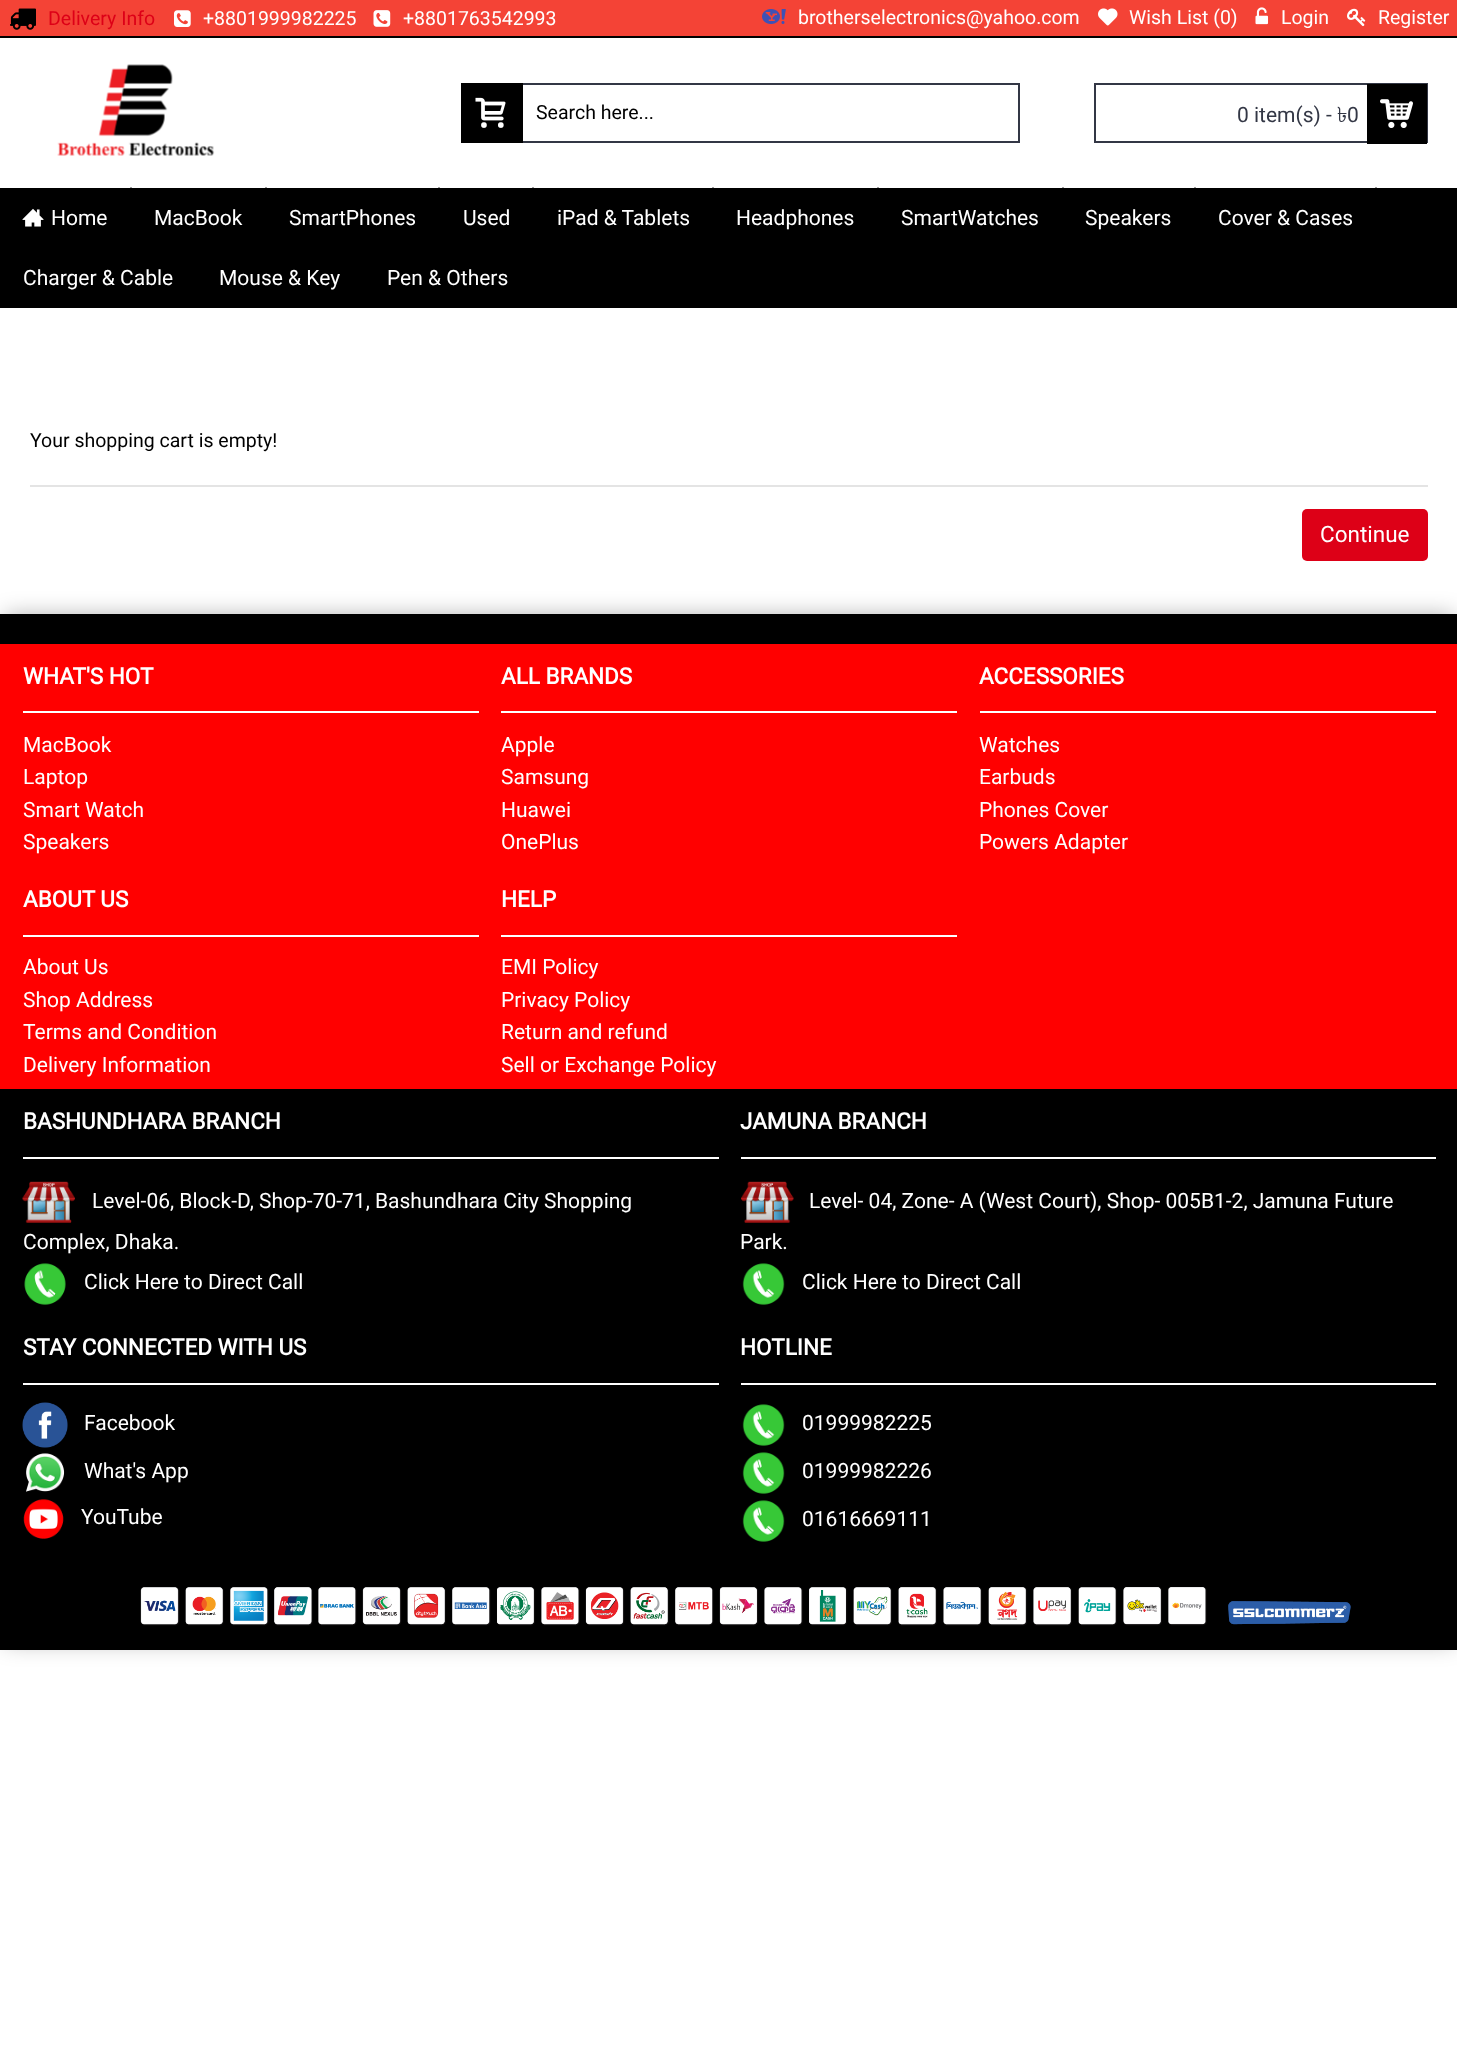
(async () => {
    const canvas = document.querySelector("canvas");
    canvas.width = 1457;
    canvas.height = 2070;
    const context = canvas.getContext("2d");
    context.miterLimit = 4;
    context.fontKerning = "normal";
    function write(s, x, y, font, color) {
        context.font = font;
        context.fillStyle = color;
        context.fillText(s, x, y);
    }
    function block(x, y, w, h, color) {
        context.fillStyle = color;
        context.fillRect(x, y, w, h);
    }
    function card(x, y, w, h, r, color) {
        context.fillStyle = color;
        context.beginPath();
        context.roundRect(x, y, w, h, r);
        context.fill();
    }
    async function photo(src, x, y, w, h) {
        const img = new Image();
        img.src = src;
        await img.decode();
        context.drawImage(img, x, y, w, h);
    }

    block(0, 0, 1457, 2070, "rgb(255, 255, 255)");
    block(0, 0, 1457, 36, "rgb(244, 67, 54)");
    block(0, 36, 1457, 2, "rgb(0, 0, 0)");
    await photo("media/1.png", 10, 8, 26, 22);
    write("Delivery Info", 48, 25, "19.5px Roboto", "rgb(221, 0, 23)");
    await photo("media/2.png", 174, 10, 17, 17);
    write("+8801999982225", 203, 25, "19.5px Roboto", "rgb(255, 255, 255)");
    await photo("media/3.png", 373, 10, 18, 17);
    write("+8801763542993", 403, 25, "19.5px Roboto", "rgb(255, 255, 255)");
    await photo("media/4.png", 762, 9, 24, 15);
    write("brotherselectronics@yahoo.com", 798, 24, "19.5px Roboto", "rgb(255, 255, 255)");
    await photo("media/5.png", 1098, 8, 20, 18);
    write("Wish List (0)", 1129, 24, "19.5px Roboto", "rgb(255, 255, 255)");
    await photo("media/6.png", 1255, 7, 14, 18);
    write("Login", 1281, 24, "19.5px Roboto", "rgb(255, 255, 255)");
    await photo("media/7.png", 1347, 8, 19, 19);
    write("Register", 1378, 24, "19.5px Roboto", "rgb(255, 255, 255)");
    await photo("media/8.png", 57, 64, 158, 92);
    context.strokeStyle = "rgb(51, 55, 69)";
    context.lineWidth = 2;
    context.strokeRect(462, 84, 557, 58);
    block(461, 83, 62, 60, "rgb(0, 0, 0)");
    await photo("media/9.png", 475, 97, 31, 31);
    write("Search here...", 536, 119, "19.5px Roboto", "rgb(0, 0, 0)");
    context.strokeRect(1095, 84, 332, 58);
    write("0 item(s) -", 1237, 122, "21px Roboto", "rgb(51, 55, 69)");
    write("৳", 1337, 122, "21px Lohit Bengali", "rgb(51, 55, 69)");
    write("0", 1347, 122, "21px Roboto", "rgb(51, 55, 69)");
    block(1367, 84, 60, 60, "rgb(0, 0, 0)");
    await photo("media/10.png", 1380, 99, 33, 29);
    block(0, 188, 1457, 120, "rgb(0, 0, 0)");
    context.beginPath();
    context.moveTo(131, 187.5);
    context.lineTo(131, 247.5);
    context.strokeStyle = "rgb(0, 0, 0)";
    context.lineWidth = 1.5;
    context.setLineDash([1.5, 1.5]);
    context.stroke();
    await photo("media/11.png", 22, 208, 22, 19);
    write("Home", 51, 225, "21px Roboto", "rgb(255, 255, 255)");
    context.beginPath();
    context.moveTo(266, 187.5);
    context.lineTo(266, 247.5);
    context.stroke();
    write("MacBook", 154, 225, "21px Roboto", "rgb(255, 255, 255)");
    context.beginPath();
    context.moveTo(439, 187.5);
    context.lineTo(439, 247.5);
    context.stroke();
    write("SmartPhones", 289, 225, "21px Roboto", "rgb(255, 255, 255)");
    context.beginPath();
    context.moveTo(533, 187.5);
    context.lineTo(533, 247.5);
    context.stroke();
    write("Used", 463, 225, "21px Roboto", "rgb(255, 255, 255)");
    context.beginPath();
    context.moveTo(713, 187.5);
    context.lineTo(713, 247.5);
    context.stroke();
    write("iPad & Tablets", 557, 225, "21px Roboto", "rgb(255, 255, 255)");
    context.beginPath();
    context.moveTo(878, 187.5);
    context.lineTo(878, 247.5);
    context.stroke();
    write("Headphones", 736, 225, "21px Roboto", "rgb(255, 255, 255)");
    context.beginPath();
    context.moveTo(1063, 187.5);
    context.lineTo(1063, 247.5);
    context.stroke();
    write("SmartWatches", 901, 225, "21px Roboto", "rgb(255, 255, 255)");
    context.beginPath();
    context.moveTo(1195, 187.5);
    context.lineTo(1195, 247.5);
    context.stroke();
    write("Speakers", 1085, 225, "21px Roboto", "rgb(255, 255, 255)");
    context.beginPath();
    context.moveTo(1376, 187.5);
    context.lineTo(1376, 247.5);
    context.stroke();
    write("Cover & Cases", 1218, 225, "21px Roboto", "rgb(255, 255, 255)");
    write("Charger & Cable", 23, 285, "21px Roboto", "rgb(255, 255, 255)");
    write("Mouse & Key", 219, 285, "21px Roboto", "rgb(255, 255, 255)");
    write("Pen & Others", 387, 285, "21px Roboto", "rgb(255, 255, 255)");
    write("Your shopping cart is empty!", 30, 447, "19.5px Roboto", "rgb(0, 0, 0)");
    block(30, 485, 1398, 2, "rgb(228, 228, 228)");
    card(1302, 509, 126, 52, 5, "rgb(221, 0, 23)");
    write("Continue", 1320, 542, "22.5px Roboto", "rgb(255, 255, 255)");
    context.fillStyle = "rgba(0, 0, 0, 0.3)";
    context.filter = "blur(11px)";
    context.beginPath();
    context.rect(5, 615, 1449, 1028);
    context.fill();
    context.filter = "none";
    block(0, 614, 1457, 1036, "rgb(0, 0, 0)");
    block(0, 644, 1457, 445, "rgb(255, 0, 0)");
    block(23, 711, 456, 2, "rgb(255, 255, 255)");
    write("WHAT'S HOT", 23, 684, "bold 22.5px Roboto", "rgb(255, 255, 255)");
    write("MacBook", 23, 752, "21px Roboto", "rgb(255, 255, 255)");
    write("Laptop", 23, 784, "21px Roboto", "rgb(255, 255, 255)");
    write("Smart Watch", 23, 817, "21px Roboto", "rgb(255, 255, 255)");
    write("Speakers", 23, 849, "21px Roboto", "rgb(255, 255, 255)");
    block(501, 711, 456, 2, "rgb(255, 255, 255)");
    write("ALL BRANDS", 501, 684, "bold 22.5px Roboto", "rgb(255, 255, 255)");
    write("Apple", 501, 752, "21px Roboto", "rgb(255, 255, 255)");
    write("Samsung", 501, 784, "21px Roboto", "rgb(255, 255, 255)");
    write("Huawei", 501, 817, "21px Roboto", "rgb(255, 255, 255)");
    write("OnePlus", 501, 849, "21px Roboto", "rgb(255, 255, 255)");
    block(980, 711, 456, 2, "rgb(255, 255, 255)");
    write("ACCESSORIES", 979, 684, "bold 22.5px Roboto", "rgb(255, 255, 255)");
    write("Watches", 979, 752, "21px Roboto", "rgb(255, 255, 255)");
    write("Earbuds", 979, 784, "21px Roboto", "rgb(255, 255, 255)");
    write("Phones Cover", 979, 817, "21px Roboto", "rgb(255, 255, 255)");
    write("Powers Adapter", 979, 849, "21px Roboto", "rgb(255, 255, 255)");
    block(23, 935, 456, 2, "rgb(255, 255, 255)");
    write("ABOUT US", 23, 907, "bold 22.5px Roboto", "rgb(255, 255, 255)");
    write("About Us", 23, 974, "21px Roboto", "rgb(255, 255, 255)");
    write("Shop Address", 23, 1007, "21px Roboto", "rgb(255, 255, 255)");
    write("Terms and Condition", 23, 1039, "21px Roboto", "rgb(255, 255, 255)");
    write("Delivery Information", 23, 1072, "21px Roboto", "rgb(255, 255, 255)");
    block(501, 935, 456, 2, "rgb(255, 255, 255)");
    write("HELP", 501, 907, "bold 22.5px Roboto", "rgb(255, 255, 255)");
    write("EMI Policy", 501, 974, "21px Roboto", "rgb(255, 255, 255)");
    write("Privacy Policy", 501, 1007, "21px Roboto", "rgb(255, 255, 255)");
    write("Return and refund", 501, 1039, "21px Roboto", "rgb(255, 255, 255)");
    write("Sell or Exchange Policy", 501, 1072, "21px Roboto", "rgb(255, 255, 255)");
    block(23, 1157, 696, 2, "rgb(255, 255, 255)");
    write("BASHUNDHARA BRANCH", 23, 1129, "bold 22.5px Roboto", "rgb(255, 255, 255)");
    await photo("media/12.png", 22, 1181, 53, 42);
    write("Level-06, Block-D, Shop-70-71, Bashundhara City Shopping", 92, 1208, "21px Roboto", "rgb(255, 255, 255)");
    write("Complex, Dhaka.", 23, 1249, "21px Roboto", "rgb(255, 255, 255)");
    await photo("media/13.png", 24, 1263, 42, 42);
    write("Click Here to Direct Call", 84, 1289, "21px Roboto", "rgb(255, 255, 255)");
    block(741, 1157, 695, 2, "rgb(255, 255, 255)");
    write("JAMUNA BRANCH", 740, 1129, "bold 22.5px Roboto", "rgb(255, 255, 255)");
    await photo("media/14.png", 741, 1181, 53, 42);
    write("Level- 04, Zone- A (West Court), Shop- 005B1-2, Jamuna Future", 809, 1208, "21px Roboto", "rgb(255, 255, 255)");
    write("Park.", 740, 1249, "21px Roboto", "rgb(255, 255, 255)");
    await photo("media/15.png", 742, 1263, 43, 42);
    write("Click Here to Direct Call", 802, 1289, "21px Roboto", "rgb(255, 255, 255)");
    block(23, 1383, 696, 2, "rgb(255, 255, 255)");
    write("STAY CONNECTED WITH US", 23, 1355, "bold 22.5px Roboto", "rgb(255, 255, 255)");
    await photo("media/16.png", 22, 1402, 46, 46);
    write("Facebook", 84, 1430, "21px Roboto", "rgb(255, 255, 255)");
    await photo("media/17.png", 26, 1453, 39, 39);
    write("What's App", 84, 1478, "21px Roboto", "rgb(255, 255, 255)");
    await photo("media/18.png", 23, 1499, 41, 40);
    write("YouTube", 81, 1524, "21px Roboto", "rgb(255, 255, 255)");
    block(741, 1383, 695, 2, "rgb(255, 255, 255)");
    write("HOTLINE", 740, 1355, "bold 22.5px Roboto", "rgb(255, 255, 255)");
    await photo("media/19.png", 742, 1404, 43, 42);
    write("01999982225", 802, 1430, "21px Roboto", "rgb(255, 255, 255)");
    await photo("media/19.png", 742, 1452, 43, 42);
    write("01999982226", 802, 1478, "21px Roboto", "rgb(255, 255, 255)");
    await photo("media/20.png", 742, 1500, 43, 42);
    write("01616669111", 802, 1526, "21px Roboto", "rgb(255, 255, 255)");
    await photo("media/21.png", 140, 1587, 1211, 39);
})();
